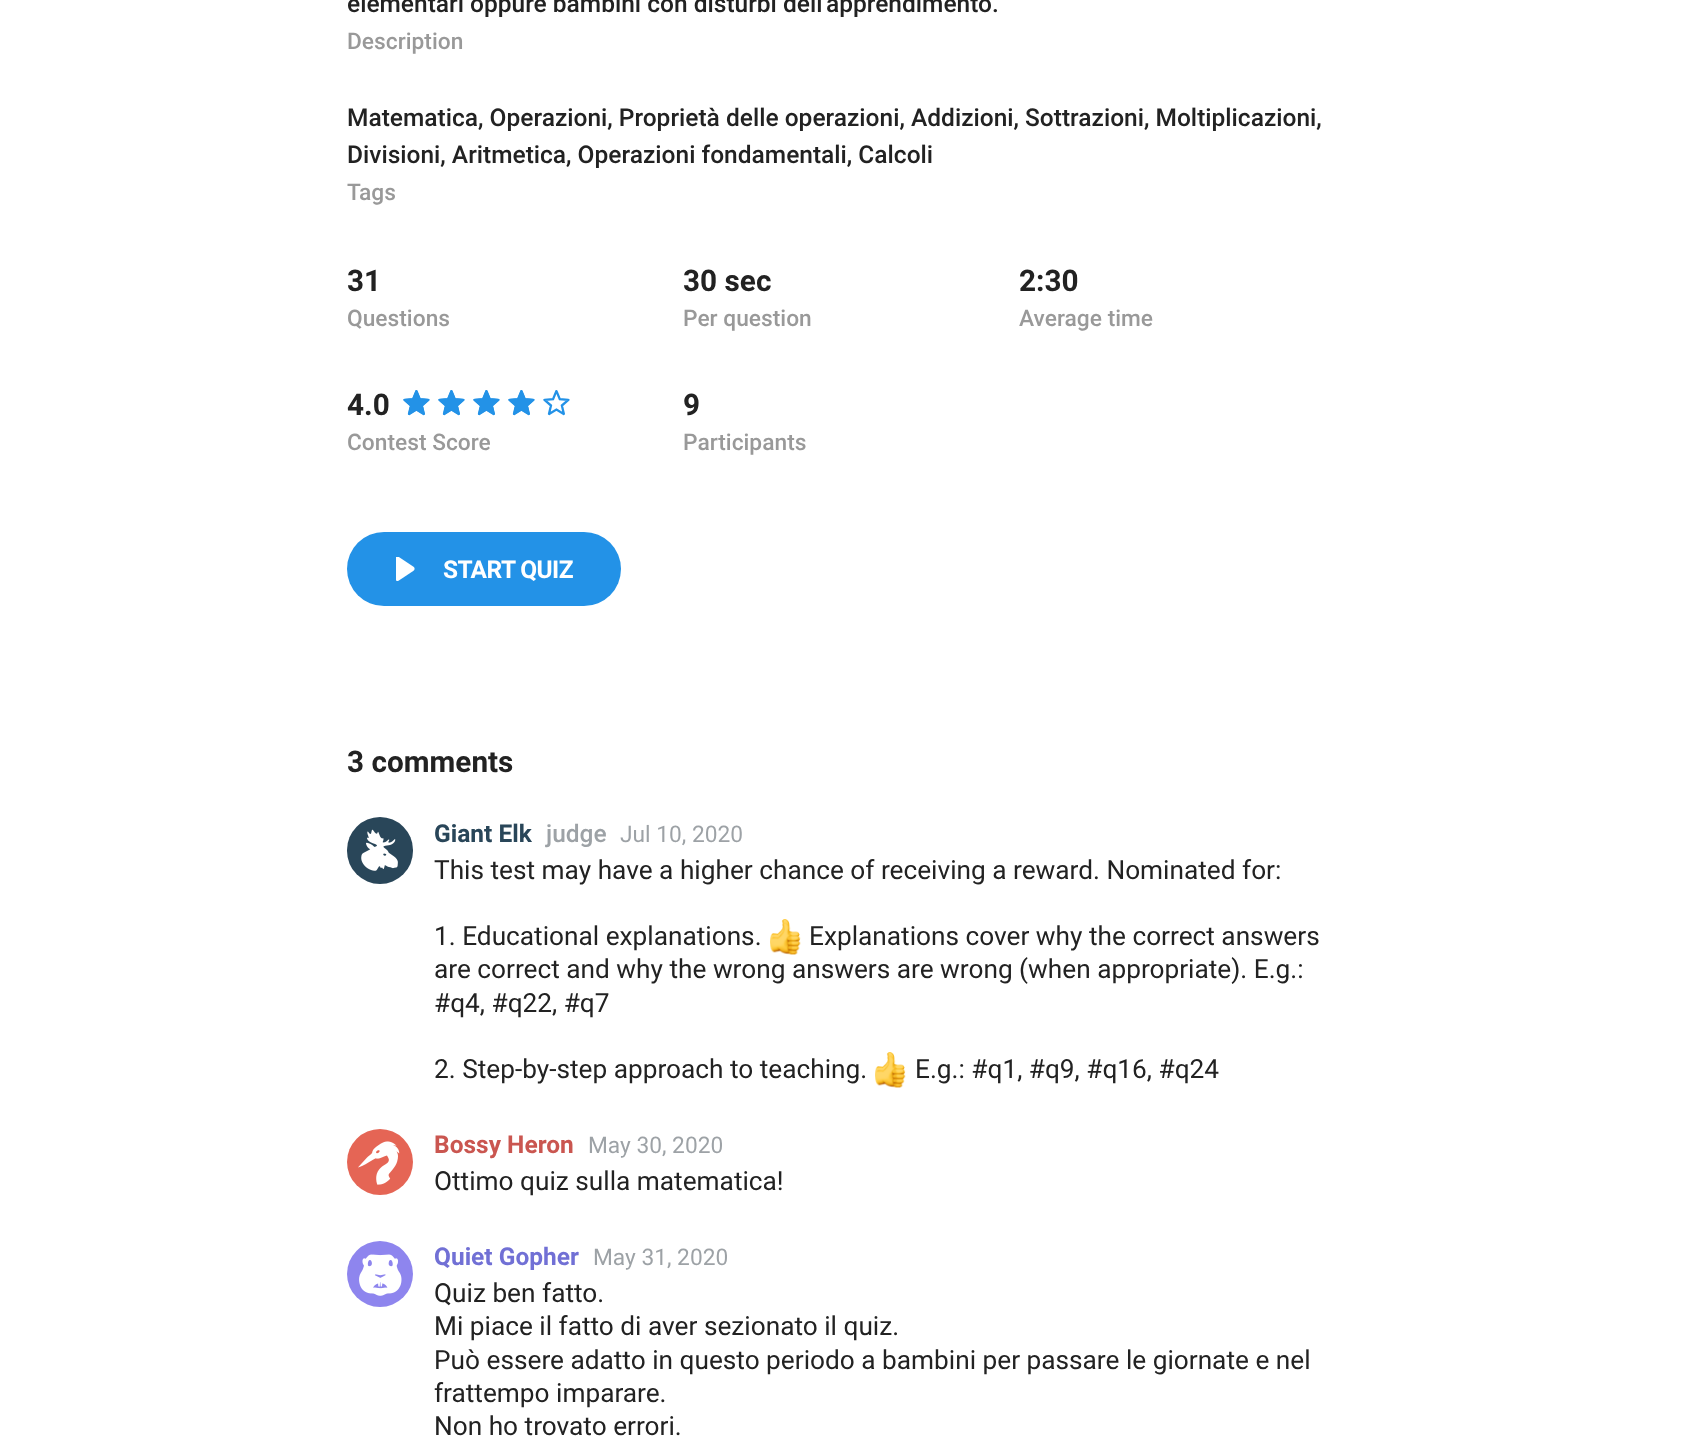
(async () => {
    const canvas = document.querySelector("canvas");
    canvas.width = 1690;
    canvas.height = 1446;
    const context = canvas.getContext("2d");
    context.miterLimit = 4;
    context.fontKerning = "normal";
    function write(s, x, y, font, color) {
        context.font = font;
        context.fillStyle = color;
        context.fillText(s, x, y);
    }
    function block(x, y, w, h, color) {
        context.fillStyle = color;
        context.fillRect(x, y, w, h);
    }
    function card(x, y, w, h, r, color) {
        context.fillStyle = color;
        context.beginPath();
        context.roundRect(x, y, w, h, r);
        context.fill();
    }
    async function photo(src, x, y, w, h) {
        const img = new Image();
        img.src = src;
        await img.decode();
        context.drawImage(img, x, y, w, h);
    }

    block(0, 0, 1690, 1446, "rgb(255, 255, 255)");
    write("elementari oppure bambini con disturbi dell'apprendimento.", 347, 12, "500 24.5px Roboto", "rgb(34, 34, 34)");
    write("Description", 347, 49, "500 22.75px Roboto", "rgb(153, 153, 153)");
    write("Matematica, Operazioni, Proprietà delle operazioni, Addizioni, Sottrazioni, Moltiplicazioni,", 347, 126, "500 24.5px Roboto", "rgb(34, 34, 34)");
    write("Divisioni, Aritmetica, Operazioni fondamentali, Calcoli", 347, 163, "500 24.5px Roboto", "rgb(34, 34, 34)");
    write("Tags", 347, 200, "500 22.75px Roboto", "rgb(153, 153, 153)");
    write("31", 347, 291, "bold 29.75px Roboto", "rgb(34, 34, 34)");
    write("Questions", 347, 326, "500 22.75px Roboto", "rgb(153, 153, 153)");
    write("30 sec", 683, 291, "bold 29.75px Roboto", "rgb(34, 34, 34)");
    write("Per question", 683, 326, "500 22.75px Roboto", "rgb(153, 153, 153)");
    write("2:30", 1019, 291, "bold 29.75px Roboto", "rgb(34, 34, 34)");
    write("Average time", 1019, 326, "500 22.75px Roboto", "rgb(153, 153, 153)");
    write("4.0", 347, 415, "bold 29.75px Roboto", "rgb(34, 34, 34)");
    await photo("media/1.png", 403, 390, 167, 26);
    write("Contest Score", 347, 450, "500 22.75px Roboto", "rgb(153, 153, 153)");
    write("9", 683, 415, "bold 29.75px Roboto", "rgb(34, 34, 34)");
    write("Participants", 683, 450, "500 22.75px Roboto", "rgb(153, 153, 153)");
    card(347, 532, 274, 74, 37, "rgb(35, 146, 231)");
    await photo("media/2.png", 396, 557, 19, 24);
    context.letterSpacing = "-0.6px";
    write("START QUIZ", 443, 578, "bold 24.5px Roboto", "rgb(255, 255, 255)");
    context.letterSpacing = "0px";
    write("3 comments", 347, 772, "bold 29.75px Roboto", "rgb(34, 34, 34)");
    card(347, 817, 66, 67, 33, "rgb(41, 70, 89)");
    await photo("media/3.png", 361, 829, 37, 42);
    write("Giant Elk", 434, 842, "bold 24.5px Roboto", "rgb(41, 70, 89)");
    write("judge", 546, 842, "500 24.5px Roboto", "rgb(157, 162, 166)");
    write("Jul 10, 2020", 620, 842, "22.75px Roboto", "rgb(157, 162, 166)");
    write("This test may have a higher chance of receiving a reward. Nominated for:", 434, 879, "26.25px Roboto", "rgb(34, 34, 34)");
    write("1. Educational explanations.", 434, 945, "26.25px Roboto", "rgb(34, 34, 34)");
    await photo("media/4.png", 770, 919, 30, 32);
    await photo("media/5.png", 770, 922, 31, 33);
    write("Explanations cover why the correct answers", 809, 945, "26.25px Roboto", "rgb(34, 34, 34)");
    write("are correct and why the wrong answers are wrong (when appropriate). E.g.:", 434, 978, "26.25px Roboto", "rgb(34, 34, 34)");
    write("#q4, #q22, #q7", 434, 1012, "26.25px Roboto", "rgb(34, 34, 34)");
    write("2. Step-by-step approach to teaching.", 434, 1078, "26.25px Roboto", "rgb(34, 34, 34)");
    await photo("media/4.png", 875, 1052, 30, 32);
    await photo("media/6.png", 875, 1055, 31, 33);
    write("E.g.: #q1, #q9, #q16, #q24", 915, 1078, "26.25px Roboto", "rgb(34, 34, 34)");
    context.fillStyle = "rgb(229, 101, 85)";
    context.beginPath();
    context.arc(380, 1162, 33, 0, Math.PI * 2);
    context.fill();
    await photo("media/7.png", 358, 1141, 42, 44);
    write("Bossy Heron", 434, 1153, "bold 24.5px Roboto", "rgb(202, 86, 80)");
    write("May 30, 2020", 588, 1153, "22.75px Roboto", "rgb(157, 162, 166)");
    write("Ottimo quiz sulla matematica!", 434, 1190, "26.25px Roboto", "rgb(34, 34, 34)");
    context.fillStyle = "rgb(142, 133, 238)";
    context.beginPath();
    context.arc(380, 1274, 33, 0, Math.PI * 2);
    context.fill();
    await photo("media/8.png", 359, 1254, 43, 42);
    write("Quiet Gopher", 434, 1265, "bold 24.5px Roboto", "rgb(113, 112, 213)");
    write("May 31, 2020", 593, 1265, "22.75px Roboto", "rgb(157, 162, 166)");
    write("Quiz ben fatto.", 434, 1302, "26.25px Roboto", "rgb(34, 34, 34)");
    write("Mi piace il fatto di aver sezionato il quiz.", 434, 1335, "26.25px Roboto", "rgb(34, 34, 34)");
    write("Può essere adatto in questo periodo a bambini per passare le giornate e nel", 434, 1369, "26.25px Roboto", "rgb(34, 34, 34)");
    write("frattempo imparare.", 434, 1402, "26.25px Roboto", "rgb(34, 34, 34)");
    write("Non ho trovato errori.", 434, 1435, "26.25px Roboto", "rgb(34, 34, 34)");
})();
